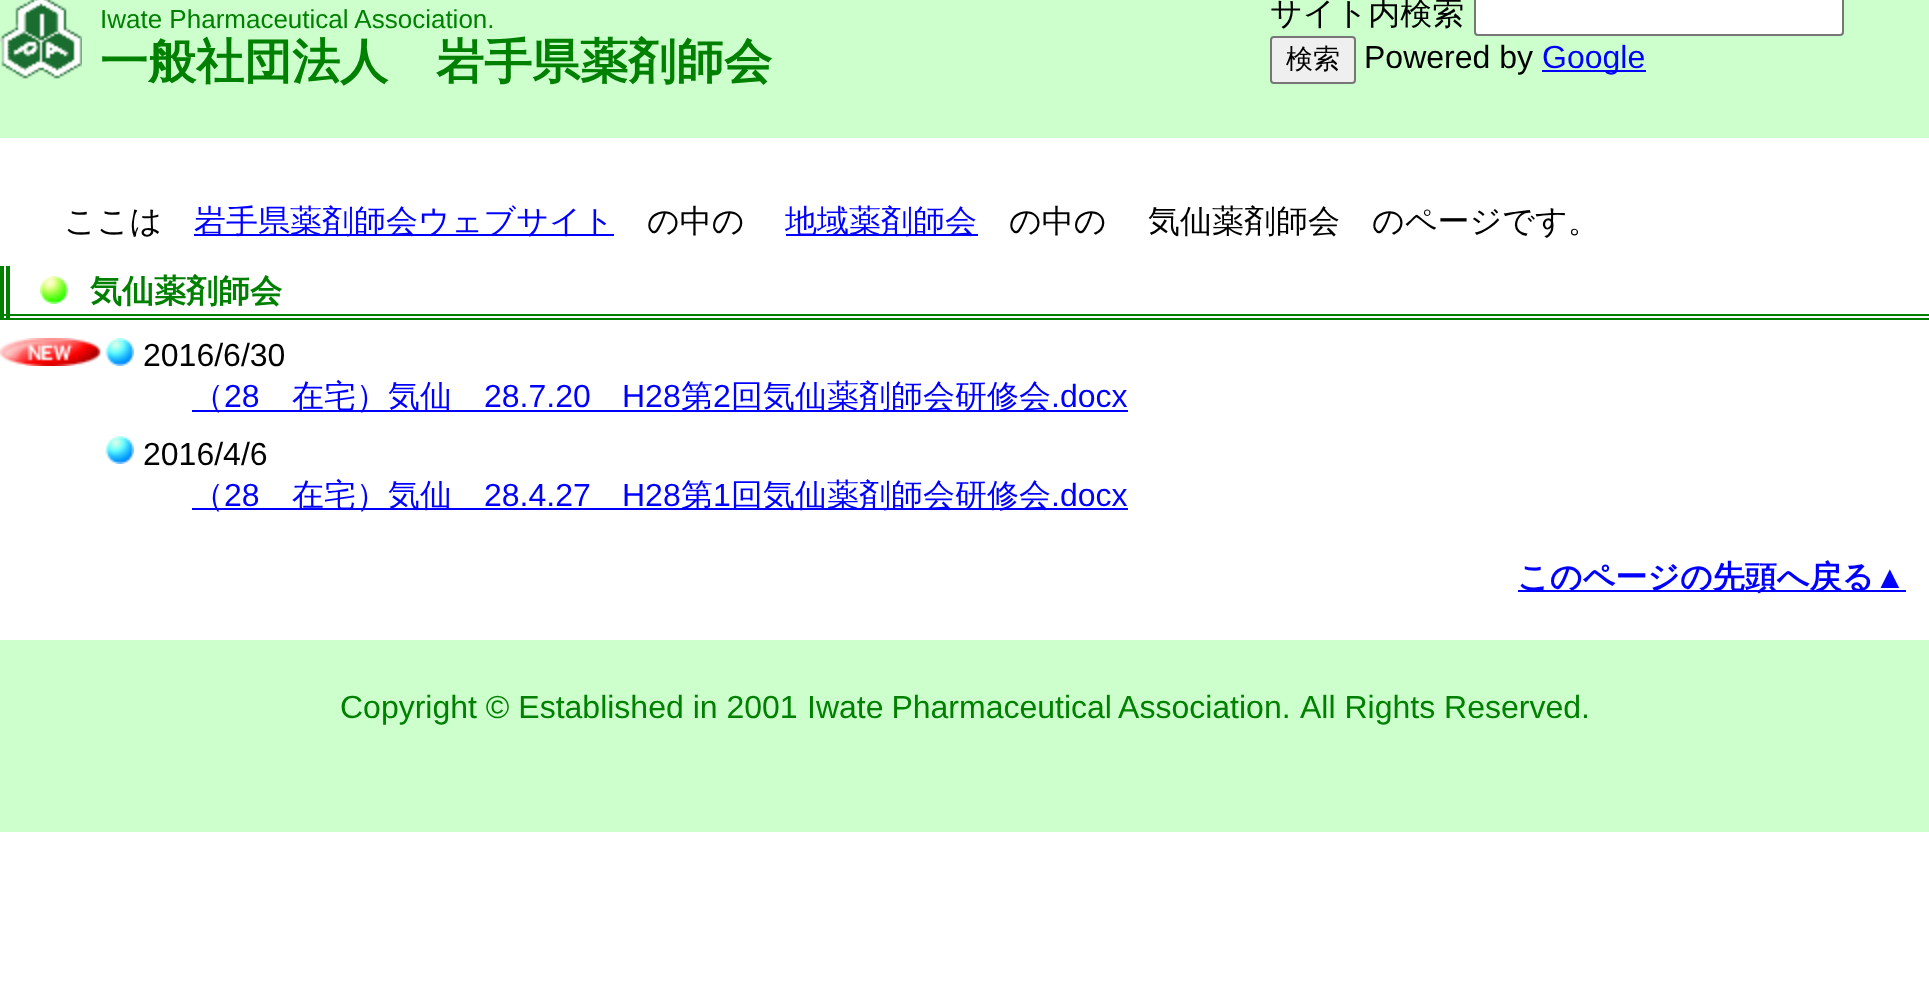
(async () => {
    const canvas = document.querySelector("canvas");
    canvas.width = 1929;
    canvas.height = 993;
    const context = canvas.getContext("2d");
    context.miterLimit = 4;
    context.fontKerning = "normal";
    function write(s, x, y, font, color) {
        context.font = font;
        context.fillStyle = color;
        context.fillText(s, x, y);
    }
    function block(x, y, w, h, color) {
        context.fillStyle = color;
        context.fillRect(x, y, w, h);
    }
    async function photo(src, x, y, w, h) {
        const img = new Image();
        img.src = src;
        await img.decode();
        context.drawImage(img, x, y, w, h);
    }

    block(0, 0, 1929, 993, "rgb(255, 255, 255)");
    block(0, 0, 1929, 138, "rgb(204, 255, 204)");
    await photo("media/1.png", 0, 0, 82, 79);
    write("Iwate Pharmaceutical Association.", 100, 28, "26px Liberation Sans", "rgb(0, 128, 0)");
    write("一般社団法人　岩手県薬剤師会", 100, 78, "bold 48px WenQuanYi Zen Hei", "rgb(0, 128, 0)");
    write("サイト内検索", 1270, 24, "500 32px WenQuanYi Zen Hei", "rgb(0, 0, 0)");
    context.fillStyle = "rgb(255, 255, 255)";
    context.beginPath();
    context.roundRect(1475, -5, 368, 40, 3);
    context.fill();
    context.strokeStyle = "rgb(118, 118, 118)";
    context.lineWidth = 2;
    context.stroke();
    context.fillStyle = "rgb(239, 239, 239)";
    context.beginPath();
    context.roundRect(1271, 37, 84, 46, 3);
    context.fill();
    context.stroke();
    write("検索", 1286, 68, "500 27px WenQuanYi Zen Hei", "rgb(0, 0, 0)");
    write("Powered by", 1364, 68, "32px Liberation Sans", "rgb(0, 0, 0)");
    block(1542, 70, 104, 2, "rgb(0, 0, 255)");
    write("Google", 1542, 68, "32px Liberation Sans", "rgb(0, 0, 255)");
    write("ここは", 64, 232, "500 32px WenQuanYi Zen Hei", "rgb(0, 0, 0)");
    block(194, 234, 420, 2, "rgb(0, 0, 255)");
    write("岩手県薬剤師会ウェブサイト", 194, 232, "500 32px WenQuanYi Zen Hei", "rgb(0, 0, 255)");
    write("の中の", 647, 232, "500 32px WenQuanYi Zen Hei", "rgb(0, 0, 0)");
    block(786, 234, 192, 2, "rgb(0, 0, 255)");
    write("地域薬剤師会", 785, 232, "500 32px WenQuanYi Zen Hei", "rgb(0, 0, 255)");
    write("の中の", 1009, 232, "500 32px WenQuanYi Zen Hei", "rgb(0, 0, 0)");
    write("気仙薬剤師会　のページです。", 1148, 232, "500 32px WenQuanYi Zen Hei", "rgb(0, 0, 0)");
    await photo("media/2.png", 40, 276, 28, 28);
    block(0, 314, 1929, 2, "rgb(0, 128, 0)");
    block(0, 318, 1929, 2, "rgb(0, 128, 0)");
    block(0, 266, 4, 54, "rgb(0, 128, 0)");
    block(6, 266, 4, 54, "rgb(0, 128, 0)");
    write("気仙薬剤師会", 90, 302, "bold 32px WenQuanYi Zen Hei", "rgb(0, 128, 0)");
    await photo("media/3.png", 0, 338, 134, 28);
    write("2016/6/30", 143, 366, "32px Liberation Sans", "rgb(0, 0, 0)");
    block(192, 410, 936, 2, "rgb(0, 0, 255)");
    write("（", 192, 407, "500 32px WenQuanYi Zen Hei", "rgb(0, 0, 255)");
    write("28", 224, 407, "32px Liberation Sans", "rgb(0, 0, 255)");
    write("在宅）気仙", 292, 407, "500 32px WenQuanYi Zen Hei", "rgb(0, 0, 255)");
    write("28.7.20", 484, 407, "32px Liberation Sans", "rgb(0, 0, 255)");
    write("H28", 622, 407, "32px Liberation Sans", "rgb(0, 0, 255)");
    write("第", 681, 407, "500 32px WenQuanYi Zen Hei", "rgb(0, 0, 255)");
    write("2", 713, 407, "32px Liberation Sans", "rgb(0, 0, 255)");
    write("回気仙薬剤師会研修会", 731, 407, "500 32px WenQuanYi Zen Hei", "rgb(0, 0, 255)");
    write(".docx", 1051, 407, "32px Liberation Sans", "rgb(0, 0, 255)");
    await photo("media/4.png", 105, 436, 29, 28);
    write("2016/4/6", 143, 465, "32px Liberation Sans", "rgb(0, 0, 0)");
    block(192, 508, 936, 2, "rgb(0, 0, 255)");
    write("（", 192, 506, "500 32px WenQuanYi Zen Hei", "rgb(0, 0, 255)");
    write("28", 224, 506, "32px Liberation Sans", "rgb(0, 0, 255)");
    write("在宅）気仙", 292, 506, "500 32px WenQuanYi Zen Hei", "rgb(0, 0, 255)");
    write("28.4.27", 484, 506, "32px Liberation Sans", "rgb(0, 0, 255)");
    write("H28", 622, 506, "32px Liberation Sans", "rgb(0, 0, 255)");
    write("第", 681, 506, "500 32px WenQuanYi Zen Hei", "rgb(0, 0, 255)");
    write("1", 713, 506, "32px Liberation Sans", "rgb(0, 0, 255)");
    write("回気仙薬剤師会研修会", 731, 506, "500 32px WenQuanYi Zen Hei", "rgb(0, 0, 255)");
    write(".docx", 1051, 506, "32px Liberation Sans", "rgb(0, 0, 255)");
    block(1518, 590, 388, 2, "rgb(0, 0, 255)");
    write("このページの先頭へ戻る", 1517, 588, "bold 32px WenQuanYi Zen Hei", "rgb(0, 0, 255)");
    write("▲", 1874, 588, "bold 32px Liberation Sans", "rgb(0, 0, 255)");
    block(0, 640, 1929, 192, "rgb(204, 255, 204)");
    write("Copyright © Established in 2001", 340, 718, "32px Liberation Sans", "rgb(0, 128, 0)");
    context.wordSpacing = "-1px";
    write("Iwate Pharmaceutical Association.", 807, 718, "32px Liberation Sans", "rgb(0, 128, 0)");
    context.wordSpacing = "0px";
    write("All Rights Reserved.", 1300, 718, "32px Liberation Sans", "rgb(0, 128, 0)");
})();
